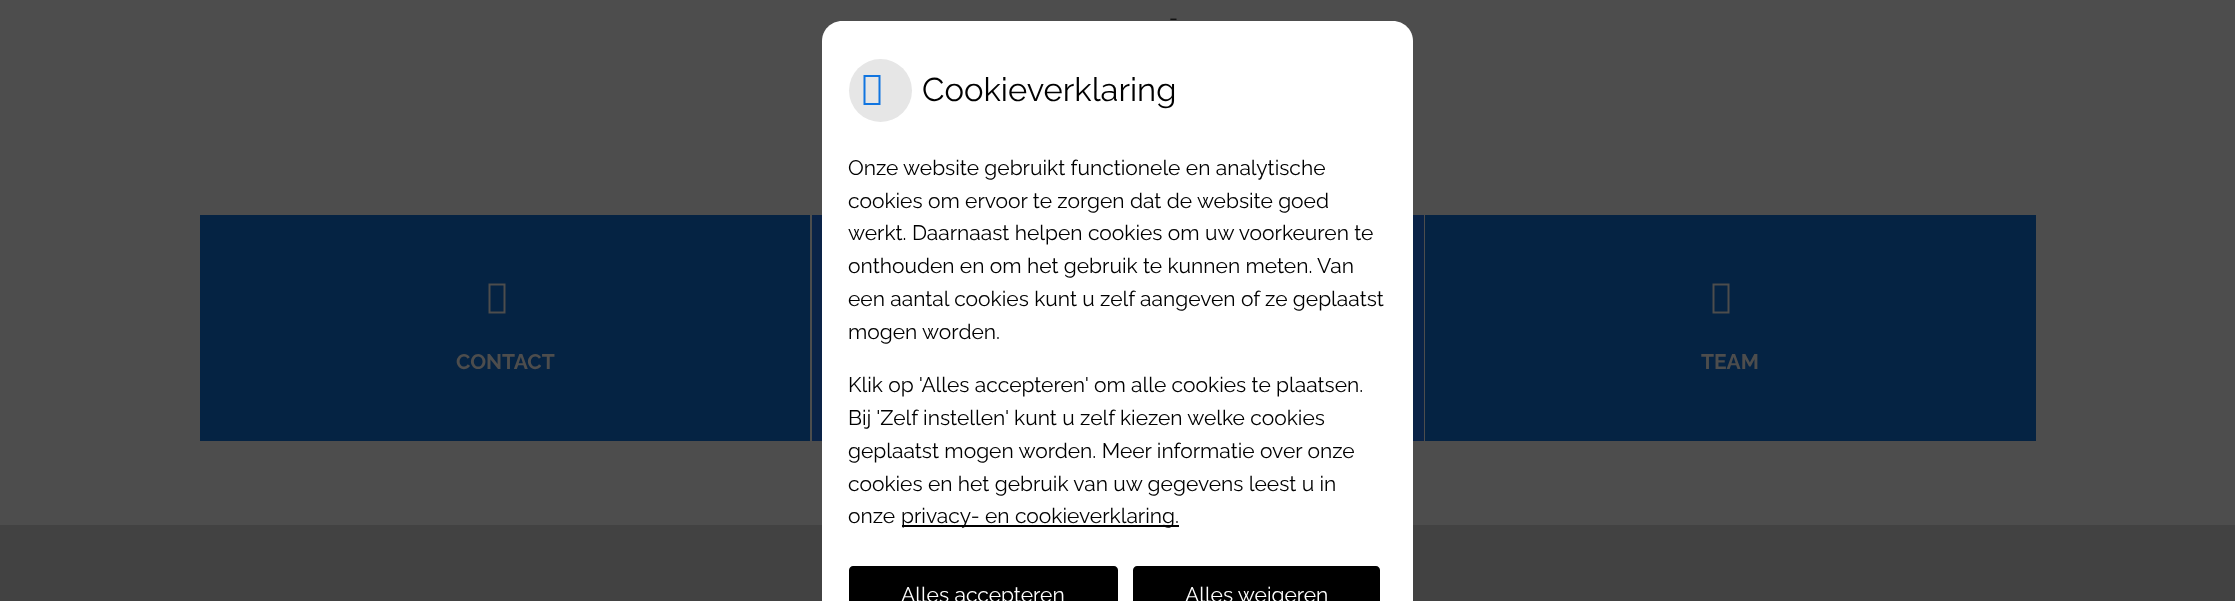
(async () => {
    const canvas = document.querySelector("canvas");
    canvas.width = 2235;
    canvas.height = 601;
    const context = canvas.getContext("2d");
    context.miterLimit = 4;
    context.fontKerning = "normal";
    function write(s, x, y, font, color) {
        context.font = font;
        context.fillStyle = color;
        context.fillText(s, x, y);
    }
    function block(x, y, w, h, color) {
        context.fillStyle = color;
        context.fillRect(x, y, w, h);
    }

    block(0, 0, 2235, 601, "rgb(77, 77, 77)");
    write("-", 1169, 25, "21px Raleway", "rgb(15, 15, 15)");
    block(200, 215, 610, 226, "rgb(5, 35, 67)");
    context.fillStyle = "rgb(77, 77, 77)";
    context.beginPath();
    context.moveTo(488.5, 313.5);
    context.lineTo(488.5, 283.5);
    context.lineTo(505.5, 283.5);
    context.lineTo(505.5, 313.5);
    context.closePath();
    context.moveTo(490.5, 311.5);
    context.lineTo(503.5, 311.5);
    context.lineTo(503.5, 285.5);
    context.lineTo(490.5, 285.5);
    context.closePath();
    context.fill();
    write("CONTACT", 456, 369, "bold 21px Raleway", "rgb(77, 77, 77)");
    block(812, 215, 612, 226, "rgb(10, 35, 71)");
    block(1425, 215, 611, 226, "rgb(5, 35, 67)");
    context.fillStyle = "rgb(77, 77, 77)";
    context.beginPath();
    context.moveTo(1712.5, 313.5);
    context.lineTo(1712.5, 283.5);
    context.lineTo(1729.5, 283.5);
    context.lineTo(1729.5, 313.5);
    context.closePath();
    context.moveTo(1714.5, 311.5);
    context.lineTo(1727.5, 311.5);
    context.lineTo(1727.5, 285.5);
    context.lineTo(1714.5, 285.5);
    context.closePath();
    context.fill();
    write("TEAM", 1701, 369, "bold 21px Raleway", "rgb(77, 77, 77)");
    block(0, 525, 2235, 76, "rgb(66, 66, 66)");
    context.fillStyle = "rgb(255, 255, 255)";
    context.beginPath();
    context.moveTo(842, 21);
    context.lineTo(1393, 21);
    context.bezierCurveTo(1404, 21, 1413, 30, 1413, 41);
    context.lineTo(1413, 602);
    context.lineTo(822, 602);
    context.lineTo(822, 41);
    context.bezierCurveTo(822, 30, 831, 21, 842, 21);
    context.closePath();
    context.fill();
    context.fillStyle = "rgb(230, 230, 230)";
    context.beginPath();
    context.arc(880.5, 90.5, 31.5, 0, Math.PI * 2);
    context.fill();
    context.fillStyle = "rgb(17, 117, 224)";
    context.beginPath();
    context.moveTo(863.5, 105);
    context.lineTo(863.5, 75);
    context.lineTo(880.5, 75);
    context.lineTo(880.5, 105);
    context.closePath();
    context.moveTo(865.5, 103);
    context.lineTo(878.5, 103);
    context.lineTo(878.5, 77);
    context.lineTo(865.5, 77);
    context.closePath();
    context.fill();
    write("Cookieverklaring", 922, 101, "32.75px Raleway", "rgb(0, 0, 0)");
    write("Onze website gebruikt functionele en analytische", 848, 175, "21px Raleway", "rgb(0, 0, 0)");
    write("cookies om ervoor te zorgen dat de website goed", 848, 208, "21px Raleway", "rgb(0, 0, 0)");
    write("werkt. Daarnaast helpen cookies om uw voorkeuren te", 848, 240, "21px Raleway", "rgb(0, 0, 0)");
    write("onthouden en om het gebruik te kunnen meten. Van", 848, 273, "21px Raleway", "rgb(0, 0, 0)");
    write("een aantal cookies kunt u zelf aangeven of ze geplaatst", 848, 306, "21px Raleway", "rgb(0, 0, 0)");
    write("mogen worden.", 848, 339, "21px Raleway", "rgb(0, 0, 0)");
    write("Klik op 'Alles accepteren' om alle cookies te plaatsen.", 848, 392, "21px Raleway", "rgb(0, 0, 0)");
    write("Bij 'Zelf instellen' kunt u zelf kiezen welke cookies", 848, 425, "21px Raleway", "rgb(0, 0, 0)");
    write("geplaatst mogen worden. Meer informatie over onze", 848, 458, "21px Raleway", "rgb(0, 0, 0)");
    write("cookies en het gebruik van uw gegevens leest u in", 848, 491, "21px Raleway", "rgb(0, 0, 0)");
    write("onze", 848, 523, "21px Raleway", "rgb(0, 0, 0)");
    block(902, 525, 277, 2, "rgb(0, 0, 0)");
    write("privacy- en cookieverklaring.", 901, 523, "21px Raleway", "rgb(0, 0, 0)");
    context.beginPath();
    context.moveTo(853, 566);
    context.lineTo(1114, 566);
    context.bezierCurveTo(1116, 566, 1118, 568, 1118, 570);
    context.lineTo(1118, 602);
    context.lineTo(849, 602);
    context.lineTo(849, 570);
    context.bezierCurveTo(849, 568, 851, 566, 853, 566);
    context.closePath();
    context.fill();
    write("Alles accepteren", 901, 602, "21px Raleway", "rgb(255, 255, 255)");
    context.fillStyle = "rgb(0, 0, 0)";
    context.beginPath();
    context.moveTo(1137, 566);
    context.lineTo(1376, 566);
    context.bezierCurveTo(1378, 566, 1380, 568, 1380, 570);
    context.lineTo(1380, 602);
    context.lineTo(1133, 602);
    context.lineTo(1133, 570);
    context.bezierCurveTo(1133, 568, 1135, 566, 1137, 566);
    context.closePath();
    context.fill();
    write("Alles weigeren", 1185, 602, "21px Raleway", "rgb(255, 255, 255)");
})();
